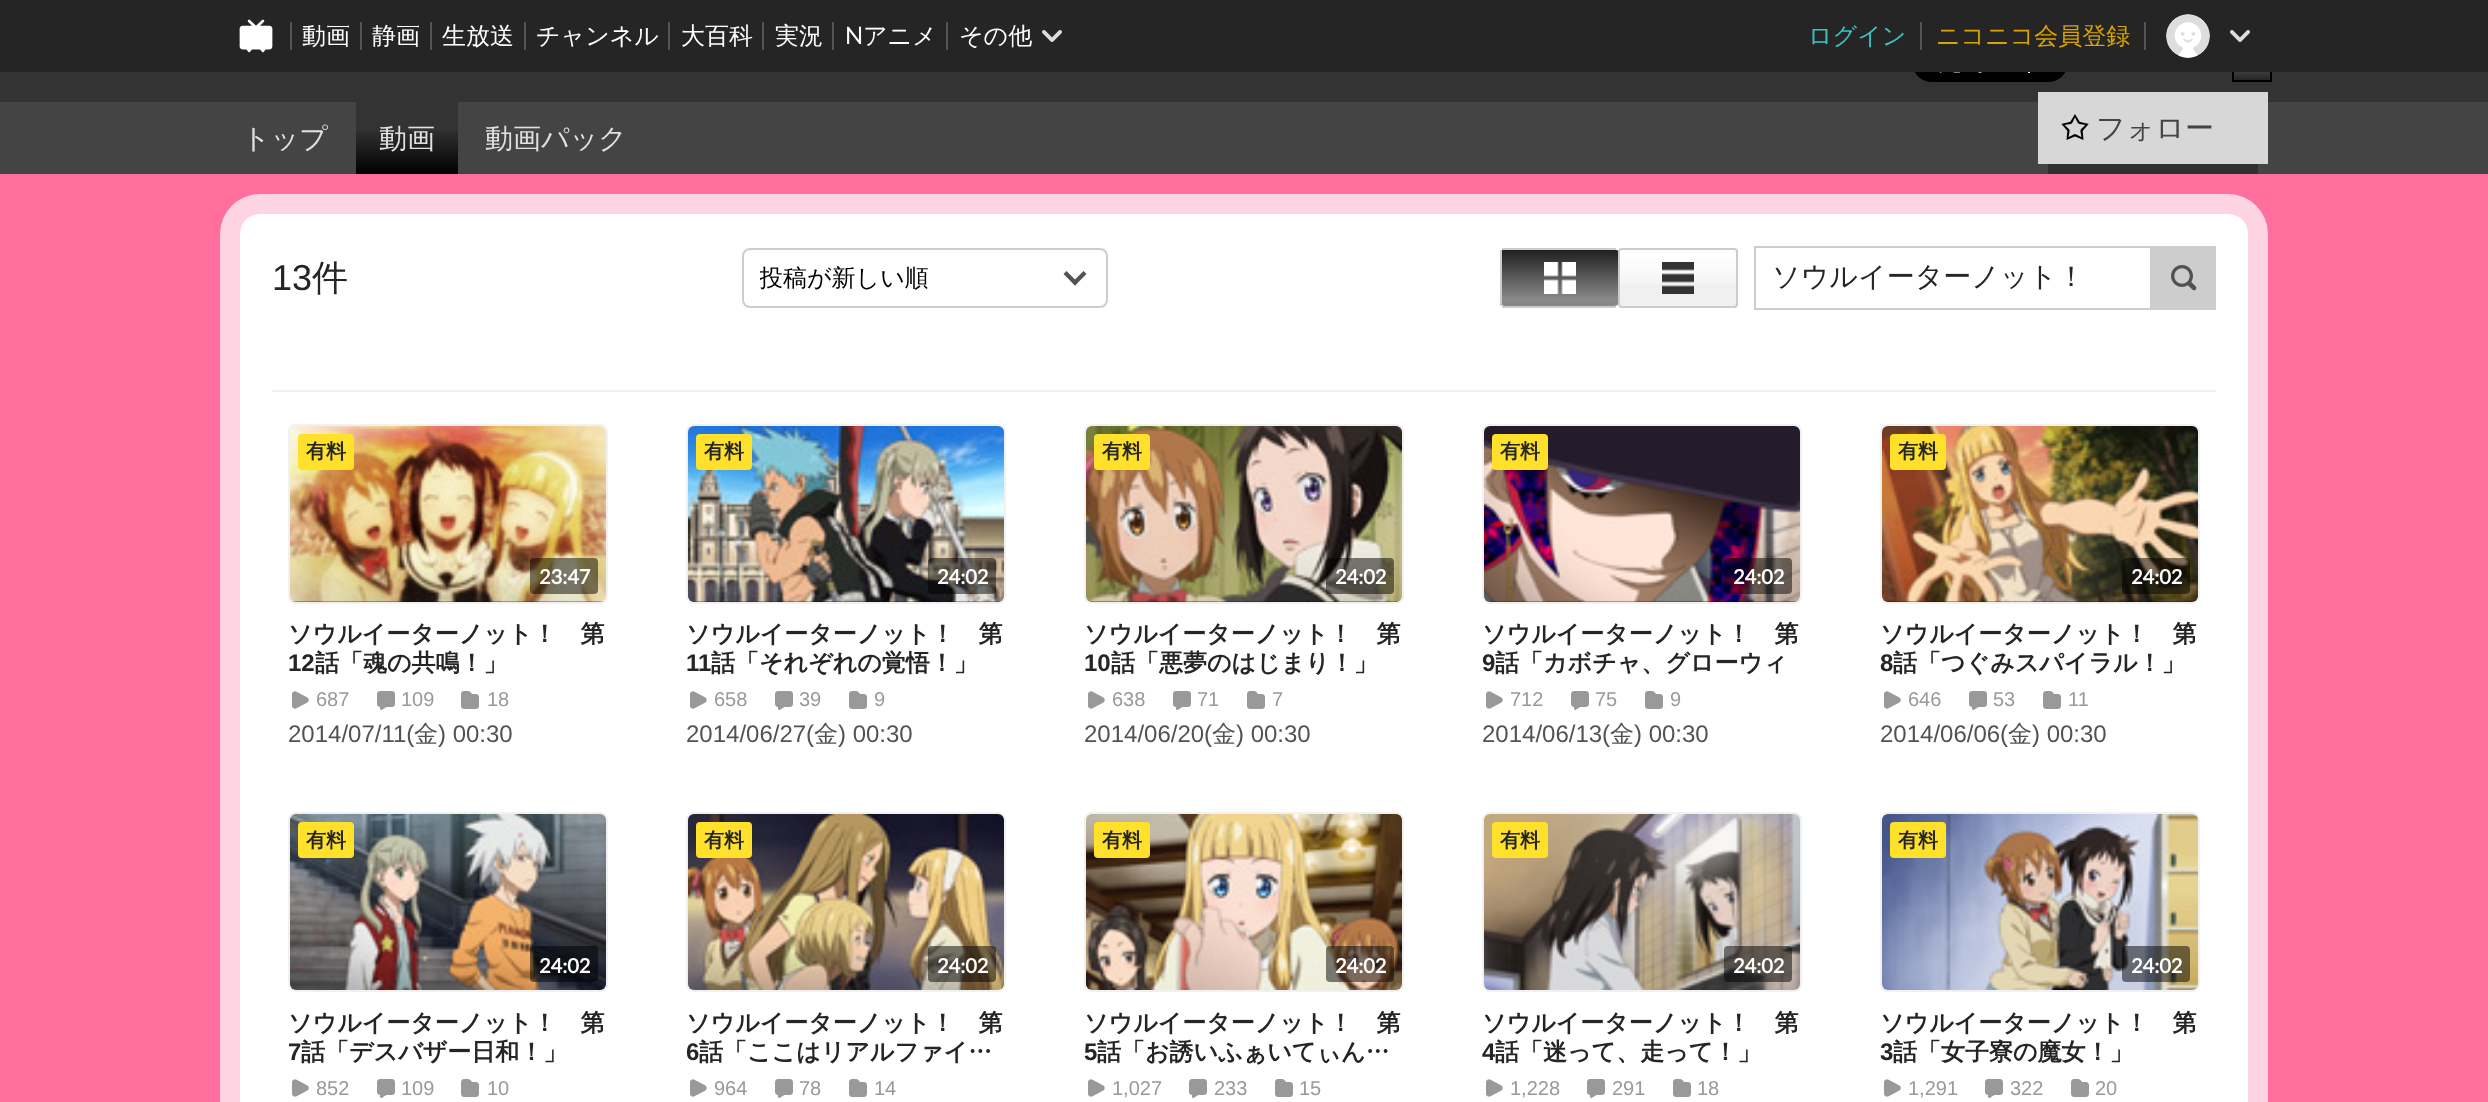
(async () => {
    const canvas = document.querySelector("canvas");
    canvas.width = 2488;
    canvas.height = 1102;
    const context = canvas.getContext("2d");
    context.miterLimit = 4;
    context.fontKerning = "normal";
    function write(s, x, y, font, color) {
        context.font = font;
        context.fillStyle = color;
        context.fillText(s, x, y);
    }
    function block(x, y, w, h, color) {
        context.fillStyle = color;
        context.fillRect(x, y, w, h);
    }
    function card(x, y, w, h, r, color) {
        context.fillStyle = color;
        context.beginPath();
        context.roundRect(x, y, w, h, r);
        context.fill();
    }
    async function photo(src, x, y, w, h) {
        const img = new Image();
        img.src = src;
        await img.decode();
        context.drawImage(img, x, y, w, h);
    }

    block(0, 0, 2488, 1102, "rgb(255, 110, 156)");
    block(0, 0, 2488, 72, "rgb(37, 37, 37)");
    await photo("media/1.png", 239, 19, 34, 34);
    block(290, 22, 2, 28, "rgb(85, 85, 85)");
    write("動画", 302, 44, "500 24px WenQuanYi Zen Hei", "rgb(255, 255, 255)");
    block(360, 22, 2, 28, "rgb(85, 85, 85)");
    write("静画", 372, 44, "500 24px WenQuanYi Zen Hei", "rgb(255, 255, 255)");
    block(430, 22, 2, 28, "rgb(85, 85, 85)");
    write("生放送", 442, 44, "500 24px WenQuanYi Zen Hei", "rgb(255, 255, 255)");
    block(524, 22, 2, 28, "rgb(85, 85, 85)");
    write("チャンネル", 536, 44, "500 24px WenQuanYi Zen Hei", "rgb(255, 255, 255)");
    block(668, 22, 2, 28, "rgb(85, 85, 85)");
    write("大百科", 681, 44, "500 24px WenQuanYi Zen Hei", "rgb(255, 255, 255)");
    block(762, 22, 2, 28, "rgb(85, 85, 85)");
    write("実況", 775, 44, "500 24px WenQuanYi Zen Hei", "rgb(255, 255, 255)");
    block(832, 22, 2, 28, "rgb(85, 85, 85)");
    write("N", 845, 44, "24px Lato", "rgb(255, 255, 255)");
    write("アニメ", 863, 44, "500 24px WenQuanYi Zen Hei", "rgb(255, 255, 255)");
    block(946, 22, 2, 28, "rgb(85, 85, 85)");
    write("その他", 959, 44, "500 24px WenQuanYi Zen Hei", "rgb(255, 255, 255)");
    await photo("media/2.png", 1042, 30, 20, 12);
    write("ログイン", 1808, 44, "500 24px WenQuanYi Zen Hei", "rgb(57, 196, 193)");
    block(1920, 22, 2, 28, "rgb(85, 85, 85)");
    write("ニコニコ会員登録", 1936, 44, "500 24px WenQuanYi Zen Hei", "rgb(217, 163, 0)");
    block(2144, 22, 2, 28, "rgb(85, 85, 85)");
    await photo("media/3.png", 2166, 14, 44, 44);
    await photo("media/2.png", 2230, 30, 20, 12);
    block(0, 72, 2488, 30, "rgb(51, 51, 51)");
    await photo("media/4.png", 1914, 72, 152, 10);
    block(2234, 72, 36, 8, "rgb(136, 136, 136)");
    await photo("media/5.png", 2234, 72, 36, 8);
    block(2270, 72, 2, 10, "rgb(0, 0, 0)");
    block(2232, 80, 40, 2, "rgb(0, 0, 0)");
    block(2232, 72, 2, 10, "rgb(0, 0, 0)");
    block(0, 102, 2488, 72, "rgb(68, 68, 68)");
    write("トップ", 242, 148, "500 28px WenQuanYi Zen Hei", "rgb(224, 224, 224)");
    block(356, 102, 102, 72, "rgb(51, 51, 51)");
    await photo("media/6.png", 356, 131, 102, 43);
    write("動画", 379, 148, "500 28px WenQuanYi Zen Hei", "rgb(224, 224, 224)");
    write("動画パック", 485, 148, "500 28px WenQuanYi Zen Hei", "rgb(224, 224, 224)");
    block(2048, 164, 210, 10, "rgb(48, 48, 48)");
    block(2038, 92, 230, 72, "rgb(215, 215, 215)");
    await photo("media/7.png", 2061, 114, 28, 26);
    write("フォロー", 2096, 138, "500 29px WenQuanYi Zen Hei", "rgb(68, 68, 68)");
    card(220, 194, 2048, 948, 40, "rgb(255, 212, 226)");
    card(240, 214, 2008, 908, 20, "rgb(255, 255, 255)");
    write("13", 272, 290, "36px Liberation Sans", "rgb(37, 37, 37)");
    write("件", 312, 290, "500 36px WenQuanYi Zen Hei", "rgb(37, 37, 37)");
    context.beginPath();
    context.roundRect(743, 249, 364, 58, 7);
    context.strokeStyle = "rgb(205, 205, 205)";
    context.lineWidth = 2;
    context.stroke();
    context.save();
    context.beginPath();
    context.rect(760, 266, 294, 24);
    context.clip();
    write("投稿が新しい順", 759, 286, "500 24px WenQuanYi Zen Hei", "rgb(0, 0, 0)");
    context.restore();
    context.fillStyle = "rgb(82, 82, 82)";
    context.beginPath();
    context.moveTo(1083.5, 271);
    context.lineTo(1086.5, 274);
    context.lineTo(1075, 285.5);
    context.lineTo(1072, 282.5);
    context.closePath();
    context.fill();
    context.beginPath();
    context.moveTo(1066.5, 271);
    context.lineTo(1078, 282.5);
    context.lineTo(1075, 285.5);
    context.lineTo(1063.5, 274);
    context.closePath();
    context.fill();
    context.fillStyle = "rgb(136, 136, 136)";
    context.beginPath();
    context.moveTo(1504, 250);
    context.lineTo(1614, 250);
    context.bezierCurveTo(1616, 250, 1618, 251, 1618, 252);
    context.lineTo(1618, 304);
    context.bezierCurveTo(1618, 305, 1616, 306, 1614, 306);
    context.lineTo(1504, 306);
    context.bezierCurveTo(1503, 306, 1502, 305, 1502, 304);
    context.lineTo(1502, 252);
    context.bezierCurveTo(1502, 251, 1503, 250, 1504, 250);
    context.closePath();
    context.fill();
    await photo("media/8.png", 1502, 250, 116, 48);
    block(1502, 248, 114, 2, "rgb(204, 204, 204)");
    block(1502, 306, 114, 2, "rgb(204, 204, 204)");
    block(1500, 250, 2, 56, "rgb(204, 204, 204)");
    await photo("media/9.png", 1544, 262, 32, 32);
    card(1618, 248, 120, 60, 4, "rgb(240, 240, 240)");
    await photo("media/10.png", 1618, 250, 120, 34);
    context.beginPath();
    context.roundRect(1619, 249, 118, 58, 3);
    context.strokeStyle = "rgb(204, 204, 204)";
    context.stroke();
    await photo("media/11.png", 1662, 262, 32, 32);
    context.strokeStyle = "rgb(205, 205, 205)";
    context.strokeRect(1755, 247, 396, 62);
    write("ソウルイーターノット！", 1772, 286, "500 28px WenQuanYi Zen Hei", "rgb(37, 37, 37)");
    block(2152, 246, 64, 64, "rgb(205, 205, 205)");
    await photo("media/12.png", 2171, 265, 26, 26);
    block(272, 390, 1944, 2, "rgb(241, 241, 241)");
    context.beginPath();
    context.roundRect(289, 425, 318, 178, 7);
    context.strokeStyle = "rgb(241, 241, 241)";
    context.stroke();
    await photo("media/13.png", 290, 426, 316, 176);
    card(298, 434, 56, 36, 4, "rgb(255, 224, 43)");
    write("有料", 306, 458, "bold 20px WenQuanYi Zen Hei", "rgb(37, 37, 37)");
    card(530, 558, 68, 36, 4, "rgba(0, 0, 0, 0.5)");
    write("23:47", 539, 584, "bold 20px Lato", "rgb(255, 255, 255)");
    write("ソウルイーターノット！　第", 288, 642, "bold 24px WenQuanYi Zen Hei", "rgb(37, 37, 37)");
    write("12", 288, 671, "bold 24px Liberation Sans", "rgb(37, 37, 37)");
    write("話「魂の共鳴！」", 315, 671, "bold 24px WenQuanYi Zen Hei", "rgb(37, 37, 37)");
    await photo("media/14.png", 292, 691, 17, 18);
    write("687", 316, 706, "20px Liberation Sans", "rgb(153, 153, 153)");
    await photo("media/15.png", 377, 691, 18, 19);
    write("109", 401, 706, "20px Liberation Sans", "rgb(153, 153, 153)");
    await photo("media/16.png", 461, 691, 18, 18);
    write("18", 487, 706, "20px Liberation Sans", "rgb(153, 153, 153)");
    write("2014/07/11(", 288, 742, "24px Liberation Sans", "rgb(82, 82, 82)");
    write("金", 414, 742, "500 24px WenQuanYi Zen Hei", "rgb(82, 82, 82)");
    write(") 00:30", 438, 742, "24px Liberation Sans", "rgb(82, 82, 82)");
    context.beginPath();
    context.roundRect(687, 425, 318, 178, 7);
    context.stroke();
    await photo("media/17.png", 688, 426, 316, 176);
    card(696, 434, 56, 36, 4, "rgb(255, 224, 43)");
    write("有料", 704, 458, "bold 20px WenQuanYi Zen Hei", "rgb(37, 37, 37)");
    card(928, 558, 68, 36, 4, "rgba(0, 0, 0, 0.5)");
    write("24:02", 937, 584, "bold 20px Lato", "rgb(255, 255, 255)");
    write("ソウルイーターノット！　第", 686, 642, "bold 24px WenQuanYi Zen Hei", "rgb(37, 37, 37)");
    write("11", 686, 671, "bold 24px Liberation Sans", "rgb(37, 37, 37)");
    write("話「それぞれの覚悟！」", 711, 671, "bold 24px WenQuanYi Zen Hei", "rgb(37, 37, 37)");
    await photo("media/14.png", 690, 691, 17, 18);
    write("658", 714, 706, "20px Liberation Sans", "rgb(153, 153, 153)");
    await photo("media/15.png", 775, 691, 18, 19);
    write("39", 799, 706, "20px Liberation Sans", "rgb(153, 153, 153)");
    await photo("media/16.png", 849, 691, 18, 18);
    write("9", 874, 706, "20px Liberation Sans", "rgb(153, 153, 153)");
    write("2014/06/27(", 686, 742, "24px Liberation Sans", "rgb(82, 82, 82)");
    write("金", 814, 742, "500 24px WenQuanYi Zen Hei", "rgb(82, 82, 82)");
    write(") 00:30", 838, 742, "24px Liberation Sans", "rgb(82, 82, 82)");
    context.beginPath();
    context.roundRect(1085, 425, 318, 178, 7);
    context.stroke();
    await photo("media/18.png", 1086, 426, 316, 176);
    card(1094, 434, 56, 36, 4, "rgb(255, 224, 43)");
    write("有料", 1102, 458, "bold 20px WenQuanYi Zen Hei", "rgb(37, 37, 37)");
    card(1326, 558, 68, 36, 4, "rgba(0, 0, 0, 0.5)");
    write("24:02", 1335, 584, "bold 20px Lato", "rgb(255, 255, 255)");
    write("ソウルイーターノット！　第", 1084, 642, "bold 24px WenQuanYi Zen Hei", "rgb(37, 37, 37)");
    write("10", 1084, 671, "bold 24px Liberation Sans", "rgb(37, 37, 37)");
    write("話「悪夢のはじまり！」", 1111, 671, "bold 24px WenQuanYi Zen Hei", "rgb(37, 37, 37)");
    await photo("media/14.png", 1088, 691, 17, 18);
    write("638", 1112, 706, "20px Liberation Sans", "rgb(153, 153, 153)");
    await photo("media/15.png", 1173, 691, 18, 19);
    write("71", 1197, 706, "20px Liberation Sans", "rgb(153, 153, 153)");
    await photo("media/16.png", 1247, 691, 18, 18);
    write("7", 1272, 706, "20px Liberation Sans", "rgb(153, 153, 153)");
    write("2014/06/20(", 1084, 742, "24px Liberation Sans", "rgb(82, 82, 82)");
    write("金", 1212, 742, "500 24px WenQuanYi Zen Hei", "rgb(82, 82, 82)");
    write(") 00:30", 1236, 742, "24px Liberation Sans", "rgb(82, 82, 82)");
    context.beginPath();
    context.roundRect(1483, 425, 318, 178, 7);
    context.stroke();
    await photo("media/19.png", 1484, 426, 316, 176);
    card(1492, 434, 56, 36, 4, "rgb(255, 224, 43)");
    write("有料", 1500, 458, "bold 20px WenQuanYi Zen Hei", "rgb(37, 37, 37)");
    card(1724, 558, 68, 36, 4, "rgba(0, 0, 0, 0.5)");
    write("24:02", 1733, 584, "bold 20px Lato", "rgb(255, 255, 255)");
    write("ソウルイーターノット！　第", 1482, 642, "bold 24px WenQuanYi Zen Hei", "rgb(37, 37, 37)");
    write("9", 1482, 671, "bold 24px Liberation Sans", "rgb(37, 37, 37)");
    write("話「カボチャ、グローウィ", 1495, 671, "bold 24px WenQuanYi Zen Hei", "rgb(37, 37, 37)");
    await photo("media/14.png", 1486, 691, 17, 18);
    write("712", 1510, 706, "20px Liberation Sans", "rgb(153, 153, 153)");
    await photo("media/15.png", 1571, 691, 18, 19);
    write("75", 1595, 706, "20px Liberation Sans", "rgb(153, 153, 153)");
    await photo("media/16.png", 1645, 691, 18, 18);
    write("9", 1670, 706, "20px Liberation Sans", "rgb(153, 153, 153)");
    write("2014/06/13(", 1482, 742, "24px Liberation Sans", "rgb(82, 82, 82)");
    write("金", 1610, 742, "500 24px WenQuanYi Zen Hei", "rgb(82, 82, 82)");
    write(") 00:30", 1634, 742, "24px Liberation Sans", "rgb(82, 82, 82)");
    context.beginPath();
    context.roundRect(1881, 425, 318, 178, 7);
    context.stroke();
    await photo("media/20.png", 1882, 426, 316, 176);
    card(1890, 434, 56, 36, 4, "rgb(255, 224, 43)");
    write("有料", 1898, 458, "bold 20px WenQuanYi Zen Hei", "rgb(37, 37, 37)");
    card(2122, 558, 68, 36, 4, "rgba(0, 0, 0, 0.5)");
    write("24:02", 2131, 584, "bold 20px Lato", "rgb(255, 255, 255)");
    write("ソウルイーターノット！　第", 1880, 642, "bold 24px WenQuanYi Zen Hei", "rgb(37, 37, 37)");
    write("8", 1880, 671, "bold 24px Liberation Sans", "rgb(37, 37, 37)");
    write("話「つぐみスパイラル！」", 1893, 671, "bold 24px WenQuanYi Zen Hei", "rgb(37, 37, 37)");
    await photo("media/14.png", 1884, 691, 17, 18);
    write("646", 1908, 706, "20px Liberation Sans", "rgb(153, 153, 153)");
    await photo("media/15.png", 1969, 691, 18, 19);
    write("53", 1993, 706, "20px Liberation Sans", "rgb(153, 153, 153)");
    await photo("media/16.png", 2043, 691, 18, 18);
    write("11", 2068, 706, "20px Liberation Sans", "rgb(153, 153, 153)");
    write("2014/06/06(", 1880, 742, "24px Liberation Sans", "rgb(82, 82, 82)");
    write("金", 2008, 742, "500 24px WenQuanYi Zen Hei", "rgb(82, 82, 82)");
    write(") 00:30", 2032, 742, "24px Liberation Sans", "rgb(82, 82, 82)");
    context.beginPath();
    context.roundRect(289, 813, 318, 178, 7);
    context.stroke();
    await photo("media/21.png", 290, 814, 316, 176);
    card(298, 822, 56, 36, 4, "rgb(255, 224, 43)");
    write("有料", 306, 847, "bold 20px WenQuanYi Zen Hei", "rgb(37, 37, 37)");
    card(530, 946, 68, 36, 4, "rgba(0, 0, 0, 0.5)");
    write("24:02", 539, 973, "bold 20px Lato", "rgb(255, 255, 255)");
    write("ソウルイーターノット！　第", 288, 1031, "bold 24px WenQuanYi Zen Hei", "rgb(37, 37, 37)");
    write("7", 288, 1060, "bold 24px Liberation Sans", "rgb(37, 37, 37)");
    write("話「デスバザー日和！」", 301, 1060, "bold 24px WenQuanYi Zen Hei", "rgb(37, 37, 37)");
    await photo("media/14.png", 292, 1079, 17, 18);
    write("852", 316, 1095, "20px Liberation Sans", "rgb(153, 153, 153)");
    await photo("media/15.png", 377, 1079, 18, 19);
    write("109", 401, 1095, "20px Liberation Sans", "rgb(153, 153, 153)");
    await photo("media/16.png", 461, 1079, 18, 18);
    write("10", 487, 1095, "20px Liberation Sans", "rgb(153, 153, 153)");
    context.beginPath();
    context.roundRect(687, 813, 318, 178, 7);
    context.stroke();
    await photo("media/22.png", 688, 814, 316, 176);
    card(696, 822, 56, 36, 4, "rgb(255, 224, 43)");
    write("有料", 704, 847, "bold 20px WenQuanYi Zen Hei", "rgb(37, 37, 37)");
    card(928, 946, 68, 36, 4, "rgba(0, 0, 0, 0.5)");
    write("24:02", 937, 973, "bold 20px Lato", "rgb(255, 255, 255)");
    write("ソウルイーターノット！　第", 686, 1031, "bold 24px WenQuanYi Zen Hei", "rgb(37, 37, 37)");
    write("6", 686, 1060, "bold 24px Liberation Sans", "rgb(37, 37, 37)");
    write("話「ここはリアルファイ…", 699, 1060, "bold 24px WenQuanYi Zen Hei", "rgb(37, 37, 37)");
    await photo("media/14.png", 690, 1079, 17, 18);
    write("964", 714, 1095, "20px Liberation Sans", "rgb(153, 153, 153)");
    await photo("media/15.png", 775, 1079, 18, 19);
    write("78", 799, 1095, "20px Liberation Sans", "rgb(153, 153, 153)");
    await photo("media/16.png", 849, 1079, 18, 18);
    write("14", 874, 1095, "20px Liberation Sans", "rgb(153, 153, 153)");
    context.beginPath();
    context.roundRect(1085, 813, 318, 178, 7);
    context.stroke();
    await photo("media/23.png", 1086, 814, 316, 176);
    card(1094, 822, 56, 36, 4, "rgb(255, 224, 43)");
    write("有料", 1102, 847, "bold 20px WenQuanYi Zen Hei", "rgb(37, 37, 37)");
    card(1326, 946, 68, 36, 4, "rgba(0, 0, 0, 0.5)");
    write("24:02", 1335, 973, "bold 20px Lato", "rgb(255, 255, 255)");
    write("ソウルイーターノット！　第", 1084, 1031, "bold 24px WenQuanYi Zen Hei", "rgb(37, 37, 37)");
    write("5", 1084, 1060, "bold 24px Liberation Sans", "rgb(37, 37, 37)");
    write("話「お誘いふぁいてぃん…", 1097, 1060, "bold 24px WenQuanYi Zen Hei", "rgb(37, 37, 37)");
    await photo("media/14.png", 1088, 1079, 17, 18);
    write("1,027", 1112, 1095, "20px Liberation Sans", "rgb(153, 153, 153)");
    await photo("media/15.png", 1189, 1079, 18, 19);
    write("233", 1214, 1095, "20px Liberation Sans", "rgb(153, 153, 153)");
    await photo("media/16.png", 1275, 1079, 18, 18);
    write("15", 1299, 1095, "20px Liberation Sans", "rgb(153, 153, 153)");
    context.beginPath();
    context.roundRect(1483, 813, 318, 178, 7);
    context.stroke();
    await photo("media/24.png", 1484, 814, 316, 176);
    card(1492, 822, 56, 36, 4, "rgb(255, 224, 43)");
    write("有料", 1500, 847, "bold 20px WenQuanYi Zen Hei", "rgb(37, 37, 37)");
    card(1724, 946, 68, 36, 4, "rgba(0, 0, 0, 0.5)");
    write("24:02", 1733, 973, "bold 20px Lato", "rgb(255, 255, 255)");
    write("ソウルイーターノット！　第", 1482, 1031, "bold 24px WenQuanYi Zen Hei", "rgb(37, 37, 37)");
    write("4", 1482, 1060, "bold 24px Liberation Sans", "rgb(37, 37, 37)");
    write("話「迷って、走って！」", 1495, 1060, "bold 24px WenQuanYi Zen Hei", "rgb(37, 37, 37)");
    await photo("media/14.png", 1486, 1079, 17, 18);
    write("1,228", 1510, 1095, "20px Liberation Sans", "rgb(153, 153, 153)");
    await photo("media/15.png", 1587, 1079, 18, 19);
    write("291", 1612, 1095, "20px Liberation Sans", "rgb(153, 153, 153)");
    await photo("media/16.png", 1673, 1079, 18, 18);
    write("18", 1697, 1095, "20px Liberation Sans", "rgb(153, 153, 153)");
    context.beginPath();
    context.roundRect(1881, 813, 318, 178, 7);
    context.stroke();
    await photo("media/25.png", 1882, 814, 316, 176);
    card(1890, 822, 56, 36, 4, "rgb(255, 224, 43)");
    write("有料", 1898, 847, "bold 20px WenQuanYi Zen Hei", "rgb(37, 37, 37)");
    card(2122, 946, 68, 36, 4, "rgba(0, 0, 0, 0.5)");
    write("24:02", 2131, 973, "bold 20px Lato", "rgb(255, 255, 255)");
    write("ソウルイーターノット！　第", 1880, 1031, "bold 24px WenQuanYi Zen Hei", "rgb(37, 37, 37)");
    write("3", 1880, 1060, "bold 24px Liberation Sans", "rgb(37, 37, 37)");
    write("話「女子寮の魔女！」", 1893, 1060, "bold 24px WenQuanYi Zen Hei", "rgb(37, 37, 37)");
    await photo("media/14.png", 1884, 1079, 17, 18);
    write("1,291", 1908, 1095, "20px Liberation Sans", "rgb(153, 153, 153)");
    await photo("media/15.png", 1985, 1079, 18, 19);
    write("322", 2010, 1095, "20px Liberation Sans", "rgb(153, 153, 153)");
    await photo("media/16.png", 2071, 1079, 18, 18);
    write("20", 2095, 1095, "20px Liberation Sans", "rgb(153, 153, 153)");
})();
